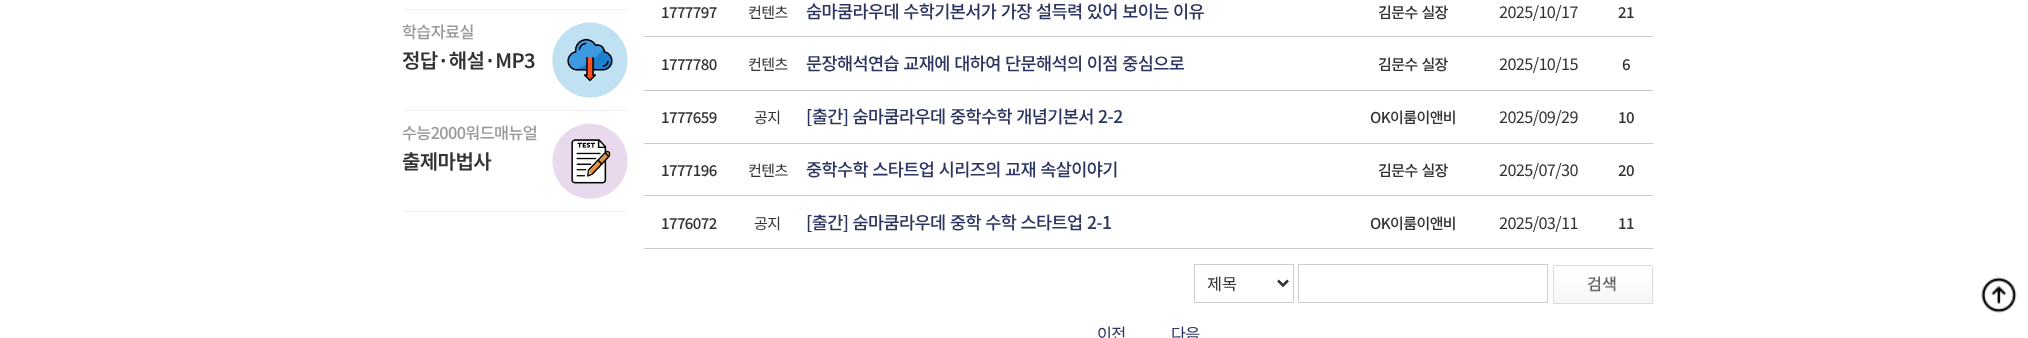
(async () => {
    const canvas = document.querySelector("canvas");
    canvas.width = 2028;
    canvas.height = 338;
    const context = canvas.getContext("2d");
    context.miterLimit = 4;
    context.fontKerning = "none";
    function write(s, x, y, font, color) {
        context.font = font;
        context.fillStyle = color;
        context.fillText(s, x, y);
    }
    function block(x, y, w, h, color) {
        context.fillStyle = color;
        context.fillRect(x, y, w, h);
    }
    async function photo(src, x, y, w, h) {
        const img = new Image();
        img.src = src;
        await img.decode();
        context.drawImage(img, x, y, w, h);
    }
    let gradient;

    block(0, 0, 2028, 338, "rgb(255, 255, 255)");
    block(403, 9, 225, 1, "rgb(241, 241, 241)");
    block(403, 110, 225, 1, "rgb(241, 241, 241)");
    await photo("media/1.png", 552, 22, 76, 76);
    context.letterSpacing = "-0.6px";
    write("학습자료실", 402, 38, "500 16.25px Noto Sans KR", "rgb(153, 153, 153)");
    write("정답·해설·MP3", 402, 68, "600 20px Noto Sans KR", "rgb(51, 51, 51)");
    block(403, 211, 225, 1, "rgb(241, 241, 241)");
    await photo("media/2.png", 552, 123, 76, 76);
    write("수능2000워드매뉴얼", 402, 139, "500 16.25px Noto Sans KR", "rgb(153, 153, 153)");
    write("출제마법사", 402, 169, "600 20px Noto Sans KR", "rgb(51, 51, 51)");
    write("1777797", 661, 18, "500 15px Noto Sans KR", "rgb(51, 51, 51)");
    write("컨텐츠", 748, 18, "15px Noto Sans KR", "rgb(51, 51, 51)");
    context.wordSpacing = "1px";
    write("숨마쿰라우데 수학기본서가 가장 설득력 있어 보이는 이유", 806, 18, "500 17.5px Noto Sans KR", "rgb(44, 52, 97)");
    write("김문수 실장", 1378, 18, "500 15px Noto Sans KR", "rgb(51, 51, 51)");
    context.wordSpacing = "0px";
    write("2025/10/17", 1499, 18, "16.25px Noto Sans KR", "rgb(51, 51, 51)");
    write("21", 1618, 18, "500 15px Noto Sans KR", "rgb(51, 51, 51)");
    write("1777780", 661, 70, "500 15px Noto Sans KR", "rgb(51, 51, 51)");
    write("컨텐츠", 748, 70, "15px Noto Sans KR", "rgb(51, 51, 51)");
    context.wordSpacing = "1px";
    write("문장해석연습 교재에 대하여 단문해석의 이점 중심으로", 806, 70, "500 17.5px Noto Sans KR", "rgb(44, 52, 97)");
    write("김문수 실장", 1378, 70, "500 15px Noto Sans KR", "rgb(51, 51, 51)");
    context.wordSpacing = "0px";
    write("2025/10/15", 1499, 70, "16.25px Noto Sans KR", "rgb(51, 51, 51)");
    block(644, 36, 1009, 1, "rgb(202, 202, 202)");
    write("6", 1622, 70, "500 15px Noto Sans KR", "rgb(51, 51, 51)");
    write("1777659", 661, 123, "500 15px Noto Sans KR", "rgb(51, 51, 51)");
    write("공지", 754, 123, "15px Noto Sans KR", "rgb(51, 51, 51)");
    context.wordSpacing = "1px";
    write("[출간] 숨마쿰라우데 중학수학 개념기본서 2-2", 806, 123, "500 17.5px Noto Sans KR", "rgb(44, 52, 97)");
    context.wordSpacing = "0px";
    write("OK이룸이앤비", 1370, 123, "500 15px Noto Sans KR", "rgb(51, 51, 51)");
    write("2025/09/29", 1499, 123, "16.25px Noto Sans KR", "rgb(51, 51, 51)");
    block(644, 90, 1009, 1, "rgb(202, 202, 202)");
    write("10", 1618, 123, "500 15px Noto Sans KR", "rgb(51, 51, 51)");
    write("1777196", 661, 176, "500 15px Noto Sans KR", "rgb(51, 51, 51)");
    write("컨텐츠", 748, 176, "15px Noto Sans KR", "rgb(51, 51, 51)");
    context.wordSpacing = "1px";
    write("중학수학 스타트업 시리즈의 교재 속살이야기", 806, 176, "500 17.5px Noto Sans KR", "rgb(44, 52, 97)");
    write("김문수 실장", 1378, 176, "500 15px Noto Sans KR", "rgb(51, 51, 51)");
    context.wordSpacing = "0px";
    write("2025/07/30", 1499, 176, "16.25px Noto Sans KR", "rgb(51, 51, 51)");
    block(644, 143, 1009, 1, "rgb(202, 202, 202)");
    write("20", 1618, 176, "500 15px Noto Sans KR", "rgb(51, 51, 51)");
    write("1776072", 661, 229, "500 15px Noto Sans KR", "rgb(51, 51, 51)");
    write("공지", 754, 229, "15px Noto Sans KR", "rgb(51, 51, 51)");
    context.wordSpacing = "1px";
    write("[출간] 숨마쿰라우데 중학 수학 스타트업 2-1", 806, 229, "500 17.5px Noto Sans KR", "rgb(44, 52, 97)");
    context.wordSpacing = "0px";
    write("OK이룸이앤비", 1370, 229, "500 15px Noto Sans KR", "rgb(51, 51, 51)");
    write("2025/03/11", 1499, 229, "16.25px Noto Sans KR", "rgb(51, 51, 51)");
    block(644, 195, 1009, 1, "rgb(202, 202, 202)");
    block(644, 248, 1009, 1, "rgb(202, 202, 202)");
    write("11", 1618, 229, "500 15px Noto Sans KR", "rgb(51, 51, 51)");
    context.strokeStyle = "rgb(204, 204, 204)";
    context.strokeRect(1194.5, 264.5, 99, 38);
    context.beginPath();
    context.moveTo(1278, 280.5);
    context.lineTo(1283, 285.5);
    context.lineTo(1288, 280.5);
    context.strokeStyle = "rgb(51, 51, 51)";
    context.lineWidth = 2.5;
    context.stroke();
    context.letterSpacing = "0px";
    write("제목", 1207, 290, "16.25px Noto Sans KR", "rgb(51, 51, 51)");
    context.strokeStyle = "rgb(204, 204, 204)";
    context.lineWidth = 1;
    context.strokeRect(1298.5, 264.5, 249, 38);
    gradient = context.createLinearGradient(1603, 266, 1603, 303);
    gradient.addColorStop(0.05, "rgb(255, 255, 255)");
    gradient.addColorStop(1, "rgb(246, 246, 246)");
    context.fillStyle = gradient;
    context.fillRect(1554, 278, 98, 25);
    context.beginPath();
    context.roundRect(1553.5, 265.5, 99, 38, 0.5);
    context.strokeStyle = "rgb(220, 220, 220)";
    context.stroke();
    write("검색", 1587, 290, "500 16.25px Noto Sans KR", "rgb(102, 102, 102)");
    context.letterSpacing = "-0.6px";
    write("이전", 1097, 340, "16.25px Noto Sans KR", "rgb(44, 52, 97)");
    write("다음", 1171, 340, "16.25px Noto Sans KR", "rgb(44, 52, 97)");
    await photo("media/3.png", 1981, 277, 36, 36);
})();
